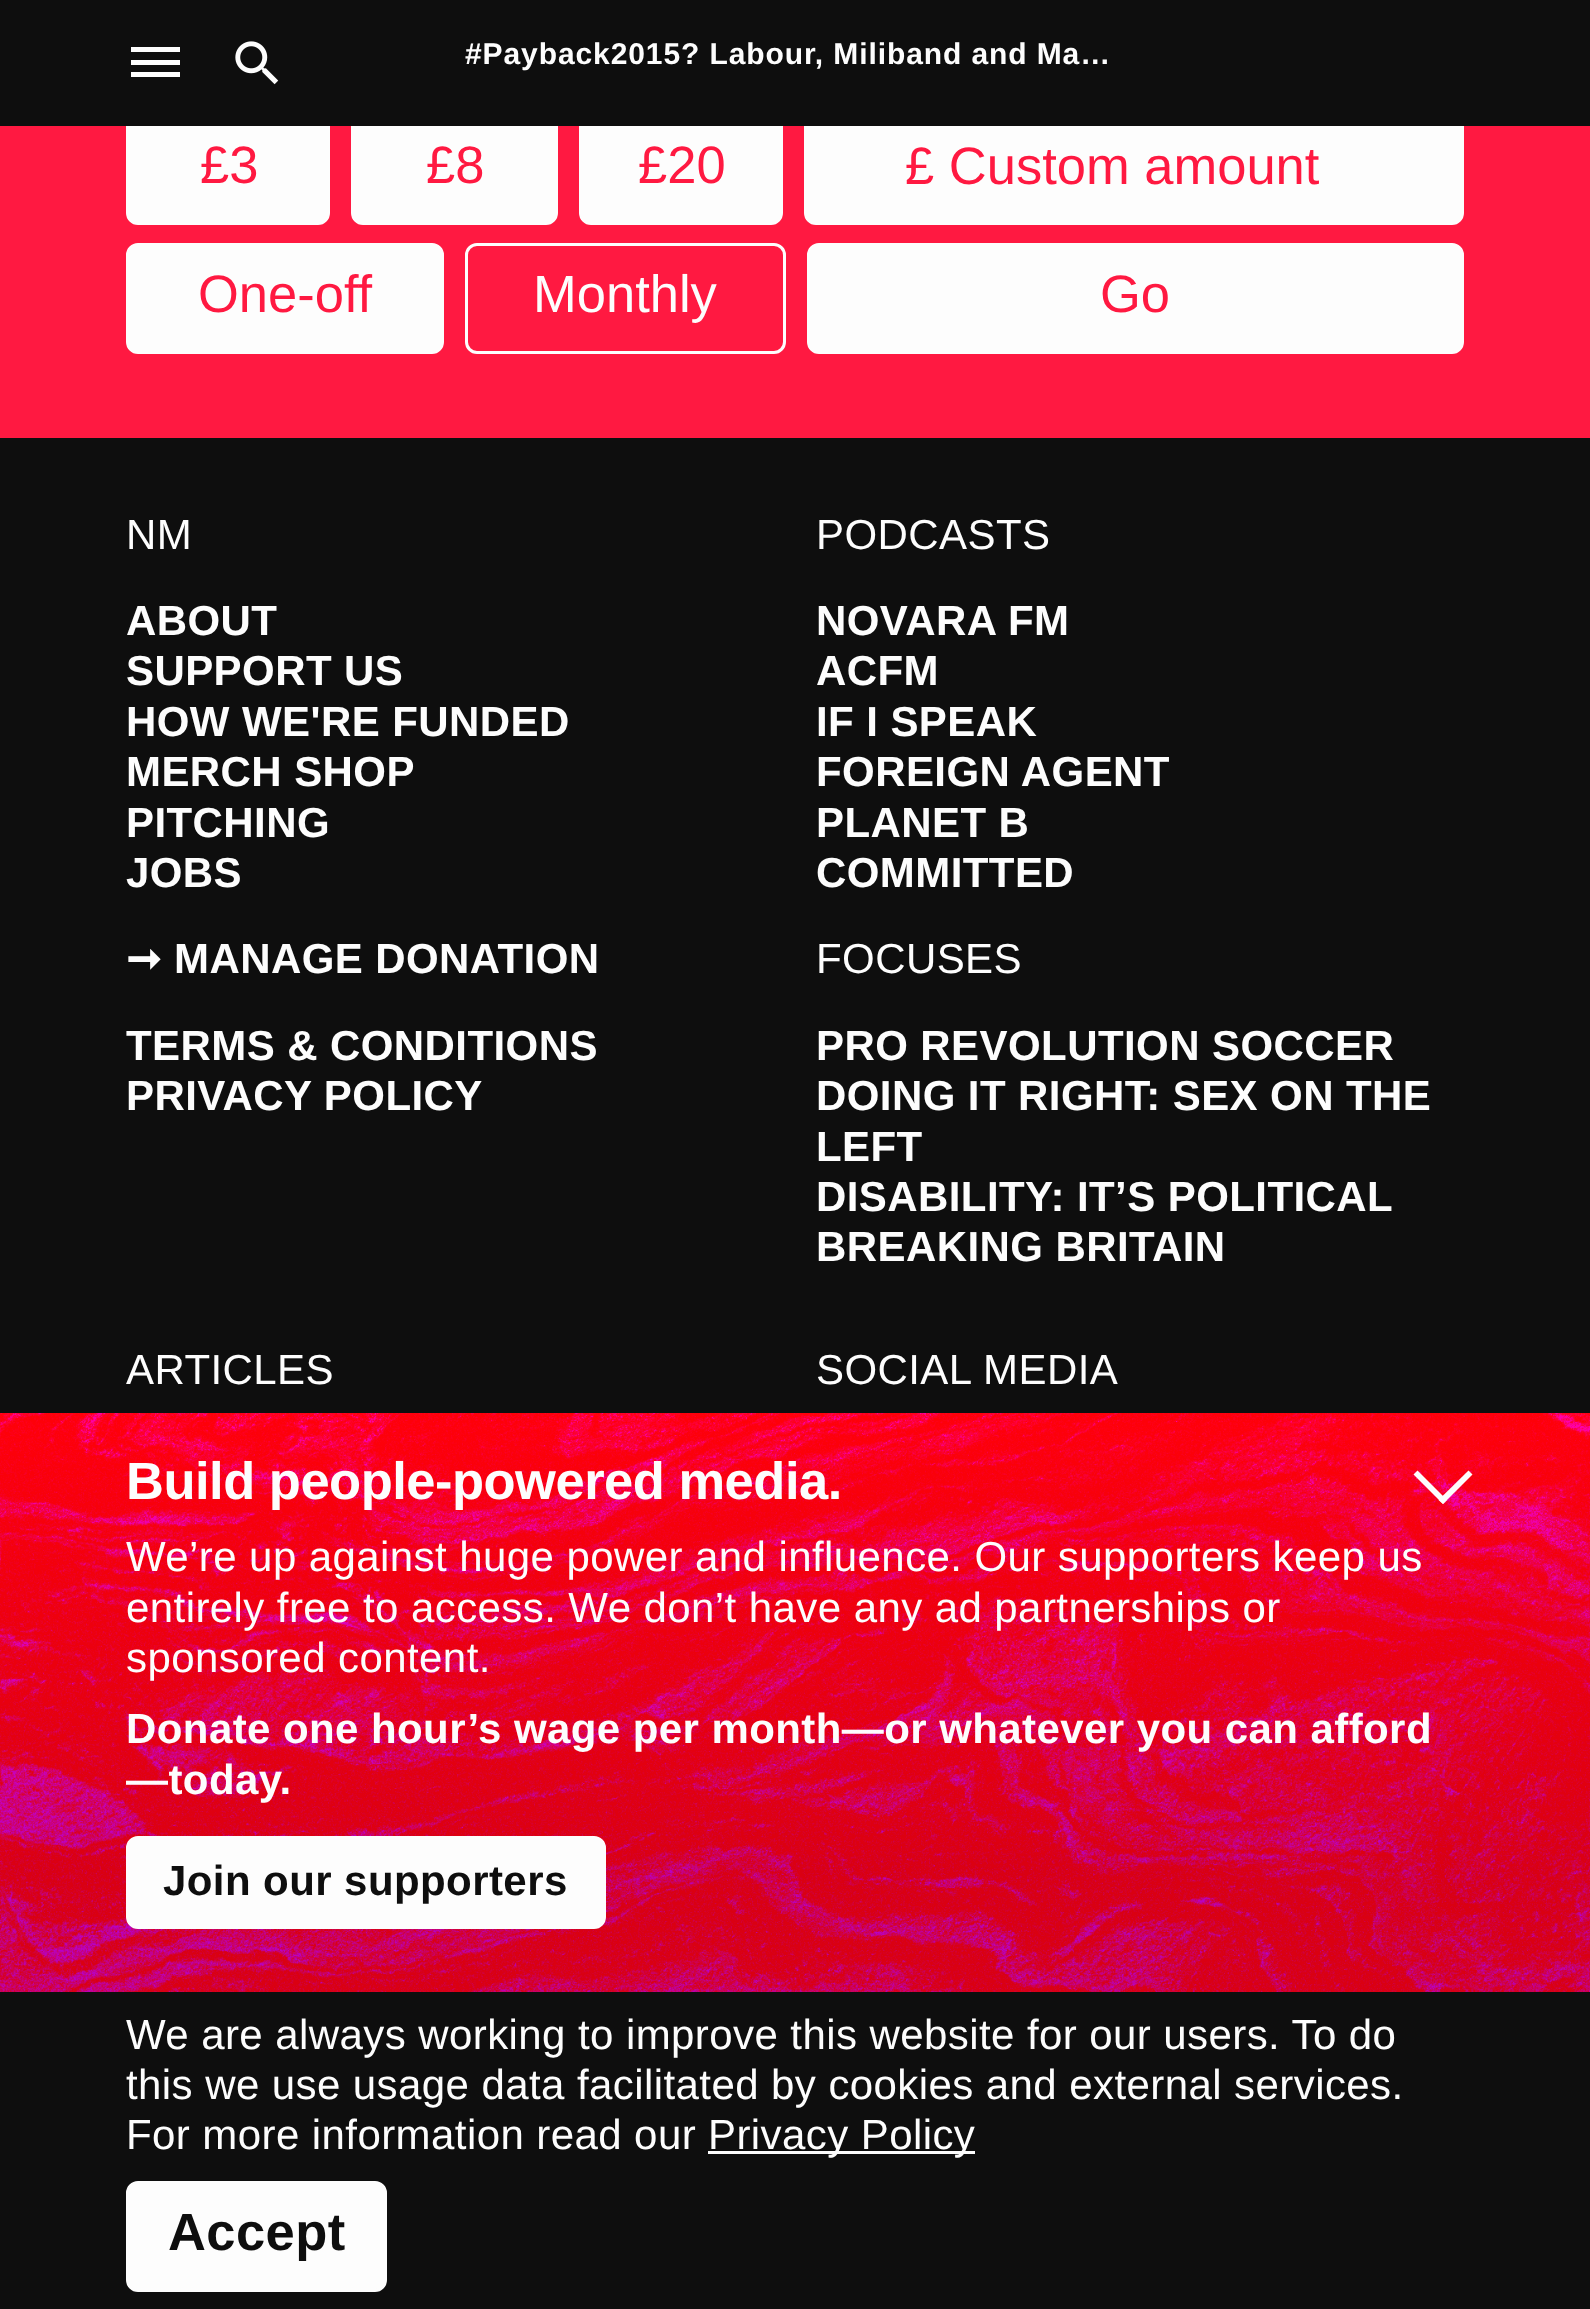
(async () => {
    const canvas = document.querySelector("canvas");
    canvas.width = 1590;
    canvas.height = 2309;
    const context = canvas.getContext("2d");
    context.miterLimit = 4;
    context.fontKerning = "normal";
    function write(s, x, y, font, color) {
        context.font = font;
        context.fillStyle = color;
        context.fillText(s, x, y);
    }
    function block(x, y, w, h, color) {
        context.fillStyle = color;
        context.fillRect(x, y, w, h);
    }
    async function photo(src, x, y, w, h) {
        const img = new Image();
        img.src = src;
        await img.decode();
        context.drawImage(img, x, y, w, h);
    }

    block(0, 0, 1590, 2309, "rgb(255, 25, 65)");
    context.fillStyle = "rgb(253, 253, 253)";
    context.beginPath();
    context.roundRect(127.5, 115.5, 201, 108, 10.5);
    context.fill();
    context.strokeStyle = "rgb(253, 253, 253)";
    context.lineWidth = 3;
    context.stroke();
    context.beginPath();
    context.roundRect(352.5, 115.5, 204, 108, 10.5);
    context.fill();
    context.stroke();
    context.beginPath();
    context.roundRect(580.5, 115.5, 201, 108, 10.5);
    context.fill();
    context.stroke();
    context.beginPath();
    context.roundRect(805.5, 115.5, 657, 108, 10.5);
    context.fill();
    context.stroke();
    block(0, 0, 1590, 126, "rgb(14, 14, 14)");
    context.fillStyle = "rgb(253, 253, 253)";
    context.beginPath();
    context.moveTo(131, 47);
    context.lineTo(180, 47);
    context.lineTo(180, 52);
    context.lineTo(131, 52);
    context.closePath();
    context.moveTo(131, 60);
    context.lineTo(180, 60);
    context.lineTo(180, 65);
    context.lineTo(131, 65);
    context.closePath();
    context.moveTo(131, 72);
    context.lineTo(180, 72);
    context.lineTo(180, 77);
    context.lineTo(131, 77);
    context.closePath();
    context.fill();
    await photo("media/1.png", 235, 41, 44, 44);
    context.letterSpacing = "0.9px";
    write("#Payback2015? Labour, Miliband and Ma…", 465, 64, "bold 30px Liberation Sans", "rgb(253, 253, 253)");
    context.letterSpacing = "0px";
    write("£3", 200, 183, "52.5px Liberation Sans", "rgb(255, 25, 65)");
    write("£8", 426, 183, "52.5px Liberation Sans", "rgb(255, 25, 65)");
    write("£20", 638, 183, "52.5px Liberation Sans", "rgb(255, 25, 65)");
    write("£ Custom amount", 905, 184, "52.5px Liberation Sans", "rgb(255, 25, 65)");
    context.fillStyle = "rgb(253, 253, 253)";
    context.beginPath();
    context.roundRect(127.5, 244.5, 315, 108, 10.5);
    context.fill();
    context.stroke();
    write("One-off", 198, 312, "52.5px Liberation Sans", "rgb(255, 25, 65)");
    context.beginPath();
    context.roundRect(466.5, 244.5, 318, 108, 10.5);
    context.stroke();
    write("Monthly", 533, 312, "52.5px Liberation Sans", "rgb(253, 253, 253)");
    context.beginPath();
    context.roundRect(808.5, 244.5, 654, 108, 10.5);
    context.fill();
    context.stroke();
    write("Go", 1100, 312, "52.5px Liberation Sans", "rgb(255, 25, 65)");
    block(0, 438, 1590, 975, "rgb(14, 14, 14)");
    context.letterSpacing = "0.42px";
    write("NM", 126, 549, "42px Liberation Sans", "rgb(253, 253, 253)");
    write("ABOUT", 126, 635, "bold 42px Liberation Sans", "rgb(253, 253, 253)");
    write("SUPPORT US", 126, 685, "bold 42px Liberation Sans", "rgb(253, 253, 253)");
    write("HOW WE'RE FUNDED", 126, 736, "bold 42px Liberation Sans", "rgb(253, 253, 253)");
    write("MERCH SHOP", 126, 786, "bold 42px Liberation Sans", "rgb(253, 253, 253)");
    write("PITCHING", 126, 837, "bold 42px Liberation Sans", "rgb(253, 253, 253)");
    write("JOBS", 126, 887, "bold 42px Liberation Sans", "rgb(253, 253, 253)");
    write("➞", 126, 973, "bold 42px DejaVu Sans", "rgb(253, 253, 253)");
    write("MANAGE DONATION", 174, 973, "bold 42px Liberation Sans", "rgb(253, 253, 253)");
    write("TERMS & CONDITIONS", 126, 1060, "bold 42px Liberation Sans", "rgb(253, 253, 253)");
    write("PRIVACY POLICY", 126, 1110, "bold 42px Liberation Sans", "rgb(253, 253, 253)");
    write("PODCASTS", 816, 549, "42px Liberation Sans", "rgb(253, 253, 253)");
    write("NOVARA FM", 816, 635, "bold 42px Liberation Sans", "rgb(253, 253, 253)");
    write("ACFM", 816, 685, "bold 42px Liberation Sans", "rgb(253, 253, 253)");
    write("IF I SPEAK", 816, 736, "bold 42px Liberation Sans", "rgb(253, 253, 253)");
    write("FOREIGN AGENT", 816, 786, "bold 42px Liberation Sans", "rgb(253, 253, 253)");
    write("PLANET B", 816, 837, "bold 42px Liberation Sans", "rgb(253, 253, 253)");
    write("COMMITTED", 816, 887, "bold 42px Liberation Sans", "rgb(253, 253, 253)");
    write("FOCUSES", 816, 973, "42px Liberation Sans", "rgb(253, 253, 253)");
    write("PRO REVOLUTION SOCCER", 816, 1060, "bold 42px Liberation Sans", "rgb(253, 253, 253)");
    write("DOING IT RIGHT: SEX ON THE", 816, 1110, "bold 42px Liberation Sans", "rgb(253, 253, 253)");
    write("LEFT", 816, 1161, "bold 42px Liberation Sans", "rgb(253, 253, 253)");
    write("DISABILITY: IT’S POLITICAL", 816, 1211, "bold 42px Liberation Sans", "rgb(253, 253, 253)");
    write("BREAKING BRITAIN", 816, 1261, "bold 42px Liberation Sans", "rgb(253, 253, 253)");
    write("ARTICLES", 126, 1384, "42px Liberation Sans", "rgb(253, 253, 253)");
    write("SOCIAL MEDIA", 816, 1384, "42px Liberation Sans", "rgb(253, 253, 253)");
    await photo("media/2.png", 0, 1413, 1590, 579);
    context.letterSpacing = "-0.5px";
    write("Build people-powered media.", 126, 1499, "bold 52.5px Liberation Sans", "rgb(253, 253, 253)");
    context.beginPath();
    context.moveTo(1468.5, 1470.5);
    context.lineTo(1472.5, 1474.5);
    context.lineTo(1443, 1504);
    context.lineTo(1438.5, 1500);
    context.closePath();
    context.fill();
    context.beginPath();
    context.moveTo(1417.5, 1470.5);
    context.lineTo(1447, 1500);
    context.lineTo(1443, 1504);
    context.lineTo(1413.5, 1474.5);
    context.closePath();
    context.fill();
    context.letterSpacing = "0.42px";
    write("We’re up against huge power and influence. Our supporters keep us", 126, 1571, "42px Liberation Sans", "rgb(253, 253, 253)");
    write("entirely free to access. We don’t have any ad partnerships or", 126, 1622, "42px Liberation Sans", "rgb(253, 253, 253)");
    write("sponsored content.", 126, 1672, "42px Liberation Sans", "rgb(253, 253, 253)");
    write("Donate one hour’s wage per month—or whatever you can afford", 126, 1743, "bold 42px Liberation Sans", "rgb(253, 253, 253)");
    write("—today.", 126, 1794, "bold 42px Liberation Sans", "rgb(253, 253, 253)");
    context.beginPath();
    context.roundRect(127.5, 1837.5, 477, 90, 10.5);
    context.fill();
    context.stroke();
    write("Join our supporters", 163, 1895, "bold 42px Liberation Sans", "rgb(14, 14, 14)");
    block(0, 1992, 1590, 317, "rgb(14, 14, 14)");
    write("We are always working to improve this website for our users. To do", 126, 2049, "42px Liberation Sans", "rgb(253, 253, 253)");
    write("this we use usage data facilitated by cookies and external services.", 126, 2099, "42px Liberation Sans", "rgb(253, 253, 253)");
    write("For more information read our", 126, 2149, "42px Liberation Sans", "rgb(253, 253, 253)");
    block(708, 2151, 267, 3, "rgb(253, 253, 253)");
    write("Privacy Policy", 708, 2149, "42px Liberation Sans", "rgb(253, 253, 253)");
    context.beginPath();
    context.roundRect(127.5, 2182.5, 258, 108, 10.5);
    context.fill();
    context.stroke();
    write("Accept", 168, 2250, "bold 52.5px Liberation Sans", "rgb(14, 14, 14)");
})();
